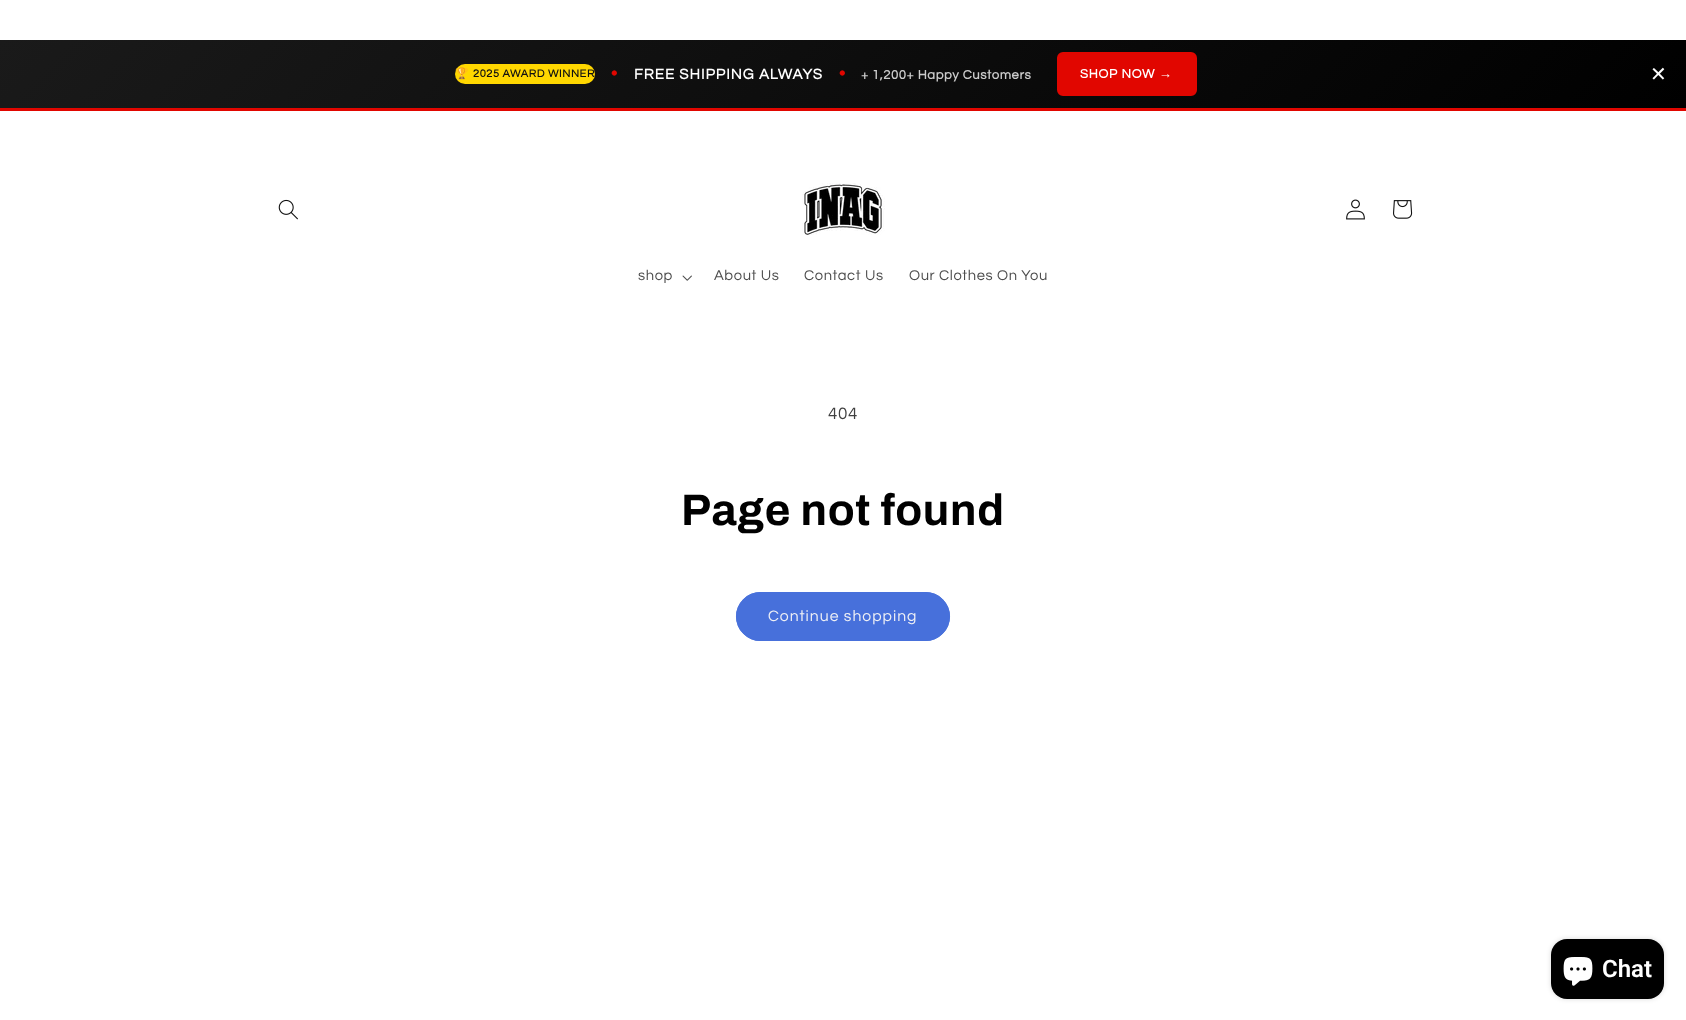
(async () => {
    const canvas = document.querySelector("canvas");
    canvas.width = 1686;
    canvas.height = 1020;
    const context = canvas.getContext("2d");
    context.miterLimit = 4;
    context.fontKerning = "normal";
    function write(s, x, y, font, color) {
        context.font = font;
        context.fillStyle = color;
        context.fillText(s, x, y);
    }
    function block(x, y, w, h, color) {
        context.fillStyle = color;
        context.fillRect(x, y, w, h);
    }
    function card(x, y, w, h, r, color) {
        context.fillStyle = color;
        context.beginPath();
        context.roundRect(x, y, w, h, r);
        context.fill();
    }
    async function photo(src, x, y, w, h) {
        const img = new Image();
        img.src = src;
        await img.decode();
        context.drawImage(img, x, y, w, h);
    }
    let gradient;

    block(0, 0, 1686, 1020, "rgb(255, 255, 255)");
    gradient = context.createLinearGradient(404, -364, 1282, 513);
    gradient.addColorStop(0, "rgb(26, 26, 26)");
    gradient.addColorStop(1, "rgb(0, 0, 0)");
    context.fillStyle = gradient;
    context.fillRect(0, 40, 1686, 68);
    block(0, 108, 1686, 3, "rgb(225, 6, 0)");
    card(455, 64, 140, 20, 10, "rgb(255, 215, 0)");
    context.letterSpacing = "0.6px";
    write("🏆", 455, 77, "bold 11px Noto Color Emoji", "rgb(17, 17, 17)");
    write("2025 AWARD WINNER", 473, 77, "bold 11px Questrial", "rgb(17, 17, 17)");
    context.letterSpacing = "1px";
    write("•", 611, 79, "bold 18px Questrial", "rgb(225, 6, 0)");
    write("FREE SHIPPING ALWAYS", 634, 79, "bold 15px Questrial", "rgb(255, 255, 255)");
    context.letterSpacing = "0.6px";
    write("•", 839, 79, "bold 18px Questrial", "rgb(225, 6, 0)");
    write("+ 1,200+ Happy Customers", 861, 79, "bold 13px Questrial", "rgb(204, 204, 204)");
    context.fillStyle = "rgb(225, 6, 0)";
    context.beginPath();
    context.roundRect(1058, 53, 138, 42, 5);
    context.fill();
    context.strokeStyle = "rgb(225, 6, 0)";
    context.lineWidth = 2;
    context.stroke();
    context.letterSpacing = "0.75px";
    write("SHOP NOW", 1080, 78, "bold 13px Questrial", "rgb(255, 255, 255)");
    write("→", 1159, 78, "bold 13px Liberation Sans", "rgb(255, 255, 255)");
    context.letterSpacing = "0px";
    write("✕", 1650, 81, "20px DejaVu Sans", "rgb(255, 255, 255)");
    await photo("media/1.png", 278, 199, 20, 21);
    await photo("media/2.png", 802, 183, 83, 52);
    await photo("media/3.png", 1346, 199, 19, 21);
    await photo("media/4.png", 1393, 200, 20, 19);
    context.letterSpacing = "0.6px";
    write("shop", 638, 280, "14.75px Questrial", "rgb(77, 77, 77)");
    await photo("media/5.png", 682, 275, 10, 6);
    write("About Us", 714, 280, "14.75px Questrial", "rgb(77, 77, 77)");
    write("Contact Us", 804, 280, "14.75px Questrial", "rgb(77, 77, 77)");
    write("Our Clothes On You", 909, 280, "14.75px Questrial", "rgb(77, 77, 77)");
    write("404", 828, 419, "17px Questrial", "rgb(64, 64, 64)");
    context.letterSpacing = "0.7px";
    write("Page not found", 681, 525, "bold 44px Archivo", "rgb(0, 0, 0)");
    card(736, 592, 214, 49, 24.5, "rgb(71, 112, 219)");
    context.beginPath();
    context.roundRect(736.5, 592.5, 213, 48, 24);
    context.strokeStyle = "rgb(71, 112, 219)";
    context.lineWidth = 1;
    context.stroke();
    context.letterSpacing = "1px";
    write("Continue shopping", 768, 621, "15.75px Questrial", "rgb(239, 240, 245)");
    context.fillStyle = "rgba(0, 0, 0, 0.15)";
    context.filter = "blur(2.5px)";
    context.beginPath();
    context.roundRect(1551, 939, 113, 60, 16);
    context.fill();
    context.filter = "none";
    card(1551, 939, 113, 60, 16, "rgb(0, 0, 0)");
    await photo("media/6.png", 1563, 957, 30, 29);
    context.letterSpacing = "0px";
    write("Chat", 1602, 977, "600 24px Roboto", "rgb(255, 255, 255)");
})();
